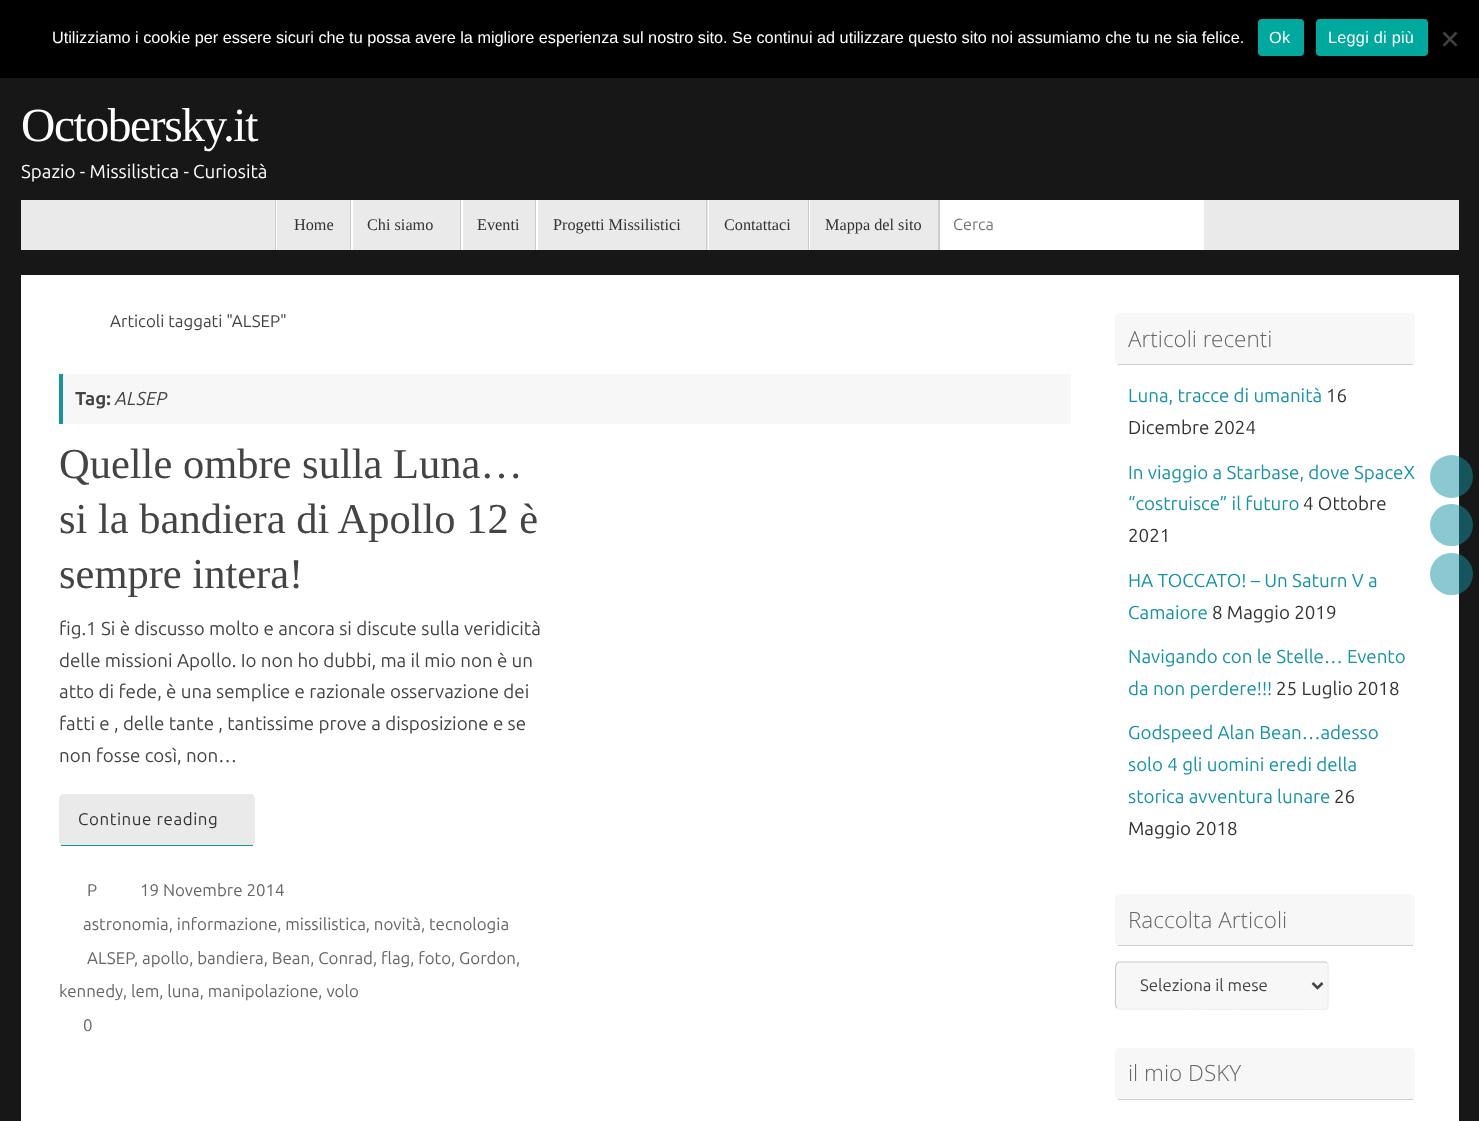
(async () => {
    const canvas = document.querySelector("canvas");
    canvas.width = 1479;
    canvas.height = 1121;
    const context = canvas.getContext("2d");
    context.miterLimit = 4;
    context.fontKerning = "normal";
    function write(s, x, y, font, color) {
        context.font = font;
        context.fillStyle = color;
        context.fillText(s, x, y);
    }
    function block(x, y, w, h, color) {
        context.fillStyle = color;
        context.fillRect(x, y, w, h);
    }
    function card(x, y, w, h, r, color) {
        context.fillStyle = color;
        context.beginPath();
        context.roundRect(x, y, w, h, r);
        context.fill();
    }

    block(0, 0, 1479, 1121, "rgb(23, 23, 23)");
    block(0, 0, 1479, 78, "rgb(0, 0, 0)");
    write("Utilizziamo i cookie per essere sicuri che tu possa avere la migliore esperienza sul nostro sito. Se continui ad utilizzare questo sito noi assumiamo che tu ne sia felice.", 52, 43, "16.25px Liberation Sans", "rgb(255, 255, 255)");
    card(1258, 19, 46, 37, 4, "rgb(0, 169, 157)");
    context.letterSpacing = "0.25px";
    write("Ok", 1269, 43, "16.25px Liberation Sans", "rgb(255, 255, 255)");
    card(1316, 19, 112, 37, 4, "rgb(0, 169, 157)");
    write("Leggi di più", 1328, 43, "16.25px Liberation Sans", "rgb(255, 255, 255)");
    context.fillStyle = "rgb(64, 64, 64)";
    context.beginPath();
    context.moveTo(1455.5, 31.5);
    context.lineTo(1457.5, 33.5);
    context.lineTo(1444.5, 46.5);
    context.lineTo(1442.5, 45);
    context.closePath();
    context.fill();
    context.beginPath();
    context.moveTo(1442.5, 33.5);
    context.lineTo(1444.5, 31.5);
    context.lineTo(1457.5, 45);
    context.lineTo(1455.5, 46.5);
    context.closePath();
    context.fill();
    context.letterSpacing = "-1.4px";
    write("Octobersky.it", 21, 141, "47.5px Liberation Serif", "rgb(255, 255, 255)");
    context.letterSpacing = "0px";
    write("Spazio - Missilistica - Curiosità", 21, 178, "18.75px Ubuntu", "rgb(255, 255, 255)");
    block(21, 200, 1438, 50, "rgb(234, 234, 234)");
    block(275, 200, 1, 50, "rgb(204, 204, 204)");
    block(276, 200, 1, 50, "rgb(255, 255, 255)");
    block(351, 200, 2, 50, "rgb(255, 255, 255)");
    block(350, 200, 1, 50, "rgb(204, 204, 204)");
    write("Home", 294, 230, "16.25px Liberation Serif", "rgb(51, 51, 51)");
    block(461, 200, 2, 50, "rgb(255, 255, 255)");
    block(460, 200, 1, 50, "rgb(204, 204, 204)");
    write("Chi siamo", 367, 230, "16.25px Liberation Serif", "rgb(51, 51, 51)");
    block(536, 200, 2, 50, "rgb(255, 255, 255)");
    block(535, 200, 1, 50, "rgb(204, 204, 204)");
    write("Eventi", 477, 230, "16.25px Liberation Serif", "rgb(51, 51, 51)");
    block(708, 200, 1, 50, "rgb(255, 255, 255)");
    block(706, 200, 1, 50, "rgb(204, 204, 204)");
    write("Progetti Missilistici", 553, 230, "16.25px Liberation Serif", "rgb(51, 51, 51)");
    block(809, 200, 1, 50, "rgb(255, 255, 255)");
    block(808, 200, 1, 50, "rgb(204, 204, 204)");
    write("Contattaci", 724, 230, "16.25px Liberation Serif", "rgb(51, 51, 51)");
    block(938, 200, 2, 50, "rgb(204, 204, 204)");
    write("Mappa del sito", 825, 230, "16.25px Liberation Serif", "rgb(51, 51, 51)");
    block(940, 200, 264, 50, "rgb(255, 255, 255)");
    write("Cerca", 953, 230, "16.25px Ubuntu", "rgb(117, 117, 117)");
    block(21, 275, 1438, 846, "rgb(255, 255, 255)");
    write("Articoli taggati \"ALSEP\"", 110, 327, "16.9px Ubuntu", "rgb(68, 68, 68)");
    block(63, 374, 1008, 50, "rgb(247, 247, 247)");
    block(59, 374, 4, 50, "rgb(22, 147, 165)");
    write("Tag:", 75, 405, "bold 18.75px Ubuntu", "rgb(68, 68, 68)");
    write("ALSEP", 115, 405, "italic 18.75px Ubuntu", "rgb(68, 68, 68)");
    write("Quelle ombre sulla Luna…", 59, 478, "42.5px Liberation Serif", "rgb(68, 68, 68)");
    write("si la bandiera di Apollo 12 è", 59, 533, "42.5px Liberation Serif", "rgb(68, 68, 68)");
    write("sempre intera!", 59, 588, "42.5px Liberation Serif", "rgb(68, 68, 68)");
    write("fig.1 Si è discusso molto e ancora si discute sulla veridicità", 59, 635, "18.75px Ubuntu", "rgb(68, 68, 68)");
    write("delle missioni Apollo. Io non ho dubbi, ma il mio non è un", 59, 667, "18.75px Ubuntu", "rgb(68, 68, 68)");
    write("atto di fede, è una semplice e razionale osservazione dei", 59, 698, "18.75px Ubuntu", "rgb(68, 68, 68)");
    write("fatti e , delle tante , tantissime prove a disposizione e se", 59, 730, "18.75px Ubuntu", "rgb(68, 68, 68)");
    write("non fosse così, non…", 59, 762, "18.75px Ubuntu", "rgb(68, 68, 68)");
    card(59, 794, 196, 52, 5, "rgb(234, 234, 234)");
    block(61, 845, 192, 1, "rgb(22, 147, 165)");
    context.letterSpacing = "0.6px";
    write("Continue reading", 78, 825, "16.9px Ubuntu", "rgb(51, 51, 51)");
    context.letterSpacing = "0px";
    write("P", 87, 896, "16.9px Ubuntu", "rgb(102, 102, 102)");
    write("19 Novembre 2014", 140, 896, "16.9px Ubuntu", "rgb(102, 102, 102)");
    write("astronomia, informazione, missilistica, novità, tecnologia", 83, 930, "16.9px Ubuntu", "rgb(102, 102, 102)");
    write("ALSEP", 87, 964, "16.9px Ubuntu", "rgb(102, 102, 102)");
    write(", apollo, bandiera, Bean, Conrad, flag, foto, Gordon,", 134, 964, "16.9px Ubuntu", "rgb(102, 102, 102)");
    write("kennedy, lem, luna, manipolazione, volo", 59, 997, "16.9px Ubuntu", "rgb(102, 102, 102)");
    write("0", 83, 1031, "16.9px Ubuntu", "rgb(102, 102, 102)");
    card(1115, 313, 300, 52, 5, "rgb(247, 247, 247)");
    block(1118, 364, 295, 1, "rgb(207, 207, 207)");
    write("Articoli recenti", 1128, 347, "300 22.5px Open Sans", "rgb(102, 102, 102)");
    write("Luna, tracce di umanità", 1128, 402, "18.75px Ubuntu", "rgb(22, 147, 165)");
    write("16", 1326, 402, "18.75px Ubuntu", "rgb(51, 51, 51)");
    write("Dicembre 2024", 1128, 434, "18.75px Ubuntu", "rgb(51, 51, 51)");
    write("In viaggio a Starbase, dove SpaceX", 1128, 479, "18.75px Ubuntu", "rgb(22, 147, 165)");
    write("“costruisce” il futuro", 1128, 510, "18.75px Ubuntu", "rgb(22, 147, 165)");
    write("4 Ottobre", 1303, 510, "18.75px Ubuntu", "rgb(51, 51, 51)");
    write("2021", 1128, 542, "18.75px Ubuntu", "rgb(51, 51, 51)");
    write("HA TOCCATO! – Un Saturn V a", 1128, 587, "18.75px Ubuntu", "rgb(22, 147, 165)");
    write("Camaiore", 1128, 619, "18.75px Ubuntu", "rgb(22, 147, 165)");
    write("8 Maggio 2019", 1212, 619, "18.75px Ubuntu", "rgb(51, 51, 51)");
    write("Navigando con le Stelle… Evento", 1128, 663, "18.75px Ubuntu", "rgb(22, 147, 165)");
    write("da non perdere!!!", 1128, 695, "18.75px Ubuntu", "rgb(22, 147, 165)");
    write("25 Luglio 2018", 1276, 695, "18.75px Ubuntu", "rgb(51, 51, 51)");
    write("Godspeed Alan Bean…adesso", 1128, 739, "18.75px Ubuntu", "rgb(22, 147, 165)");
    write("solo 4 gli uomini eredi della", 1128, 771, "18.75px Ubuntu", "rgb(22, 147, 165)");
    write("storica avventura lunare", 1128, 803, "18.75px Ubuntu", "rgb(22, 147, 165)");
    write("26", 1334, 803, "18.75px Ubuntu", "rgb(51, 51, 51)");
    write("Maggio 2018", 1128, 835, "18.75px Ubuntu", "rgb(51, 51, 51)");
    card(1115, 894, 300, 52, 5, "rgb(247, 247, 247)");
    block(1118, 945, 295, 1, "rgb(207, 207, 207)");
    write("Raccolta Articoli", 1128, 928, "300 22.5px Open Sans", "rgb(102, 102, 102)");
    card(1115, 961, 214, 49, 5, "rgb(247, 247, 247)");
    context.beginPath();
    context.moveTo(1327, 963);
    context.bezierCurveTo(1329, 965.5, 1328, 970.5, 1328, 972.5);
    context.lineTo(1328, 998.5);
    context.bezierCurveTo(1328, 1002, 1329.5, 1009.5, 1324, 1009.5);
    context.lineTo(1118.5, 1009);
    context.lineTo(1117, 1008);
    context.strokeStyle = "rgb(238, 238, 238)";
    context.lineWidth = 1.2;
    context.stroke();
    context.beginPath();
    context.moveTo(1117, 1008);
    context.bezierCurveTo(1114.5, 1006, 1115.5, 1001, 1115.5, 998.5);
    context.lineTo(1115.5, 972.5);
    context.bezierCurveTo(1115.5, 969.5, 1114.5, 962, 1120, 962);
    context.lineTo(1325.5, 962);
    context.lineTo(1327, 963);
    context.strokeStyle = "rgb(204, 204, 204)";
    context.stroke();
    context.beginPath();
    context.moveTo(1312.5, 983);
    context.lineTo(1317.5, 988);
    context.lineTo(1322.5, 983);
    context.strokeStyle = "rgb(68, 68, 68)";
    context.lineWidth = 2.5;
    context.stroke();
    write("Seleziona il mese", 1140, 991, "16.75px Ubuntu", "rgb(68, 68, 68)");
    card(1115, 1048, 300, 52, 5, "rgb(247, 247, 247)");
    block(1118, 1099, 295, 1, "rgb(207, 207, 207)");
    write("il mio DSKY", 1128, 1081, "300 22.5px Open Sans", "rgb(102, 102, 102)");
    context.fillStyle = "rgba(22, 147, 165, 0.5)";
    context.beginPath();
    context.arc(1451.5, 476.5, 21.5, 0, Math.PI * 2);
    context.fill();
    card(1430, 504, 43, 42, 21, "rgba(22, 147, 165, 0.5)");
    card(1430, 553, 43, 42, 21, "rgba(22, 147, 165, 0.5)");
})();
